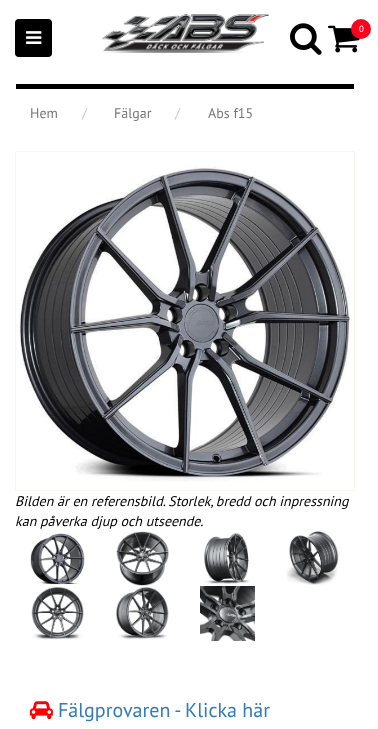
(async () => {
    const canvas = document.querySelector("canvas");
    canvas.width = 378;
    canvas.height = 729;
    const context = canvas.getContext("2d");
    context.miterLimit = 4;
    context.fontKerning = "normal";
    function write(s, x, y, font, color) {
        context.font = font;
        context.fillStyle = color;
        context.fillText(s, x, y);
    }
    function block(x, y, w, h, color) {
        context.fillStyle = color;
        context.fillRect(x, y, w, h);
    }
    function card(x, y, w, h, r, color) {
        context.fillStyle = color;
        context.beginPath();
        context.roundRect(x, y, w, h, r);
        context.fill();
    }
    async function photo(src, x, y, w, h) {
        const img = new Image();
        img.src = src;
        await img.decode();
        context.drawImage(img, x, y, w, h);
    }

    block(0, 0, 378, 729, "rgb(255, 255, 255)");
    card(15, 19, 37, 38, 4, "rgb(0, 0, 0)");
    await photo("media/1.png", 26, 31, 16, 13);
    await photo("media/2.png", 102, 14, 167, 39);
    await photo("media/3.png", 290, 23, 32, 32);
    await photo("media/4.png", 328, 25, 32, 28);
    context.fillStyle = "rgb(255, 0, 30)";
    context.beginPath();
    context.arc(361, 29, 10, 0, Math.PI * 2);
    context.fill();
    write("0", 359, 32, "9px PT Sans", "rgb(255, 255, 255)");
    block(16, 84, 338, 5, "rgb(0, 0, 0)");
    write("Hem", 30, 118, "14px PT Sans", "rgb(119, 119, 119)");
    write("/", 82, 118, "14px PT Sans", "rgb(204, 204, 204)");
    write("Fälgar", 114, 118, "14px PT Sans", "rgb(119, 119, 119)");
    write("/", 175, 118, "14px PT Sans", "rgb(204, 204, 204)");
    write("Abs f15", 208, 118, "14px PT Sans", "rgb(119, 119, 119)");
    context.strokeStyle = "rgb(247, 247, 240)";
    context.strokeRect(15.5, 151.5, 339, 339);
    await photo("media/5.png", 16, 165, 334, 317);
    write("Bilden är en referensbild. Storlek, bredd och inpressning", 15, 506, "italic 14px PT Sans", "rgb(0, 0, 0)");
    write("kan påverka djup och utseende.", 15, 526, "italic 14px PT Sans", "rgb(0, 0, 0)");
    await photo("media/6.png", 30, 533, 55, 52);
    await photo("media/7.png", 116, 531, 53, 55);
    await photo("media/8.png", 204, 532, 47, 52);
    await photo("media/9.png", 286, 531, 53, 54);
    await photo("media/10.png", 31, 586, 53, 54);
    await photo("media/11.png", 116, 587, 53, 53);
    await photo("media/12.png", 200, 586, 55, 55);
    await photo("media/13.png", 30, 701, 23, 19);
    write("Fälgprovaren - Klicka här", 58, 717, "20px PT Sans", "rgb(51, 122, 183)");
})();
